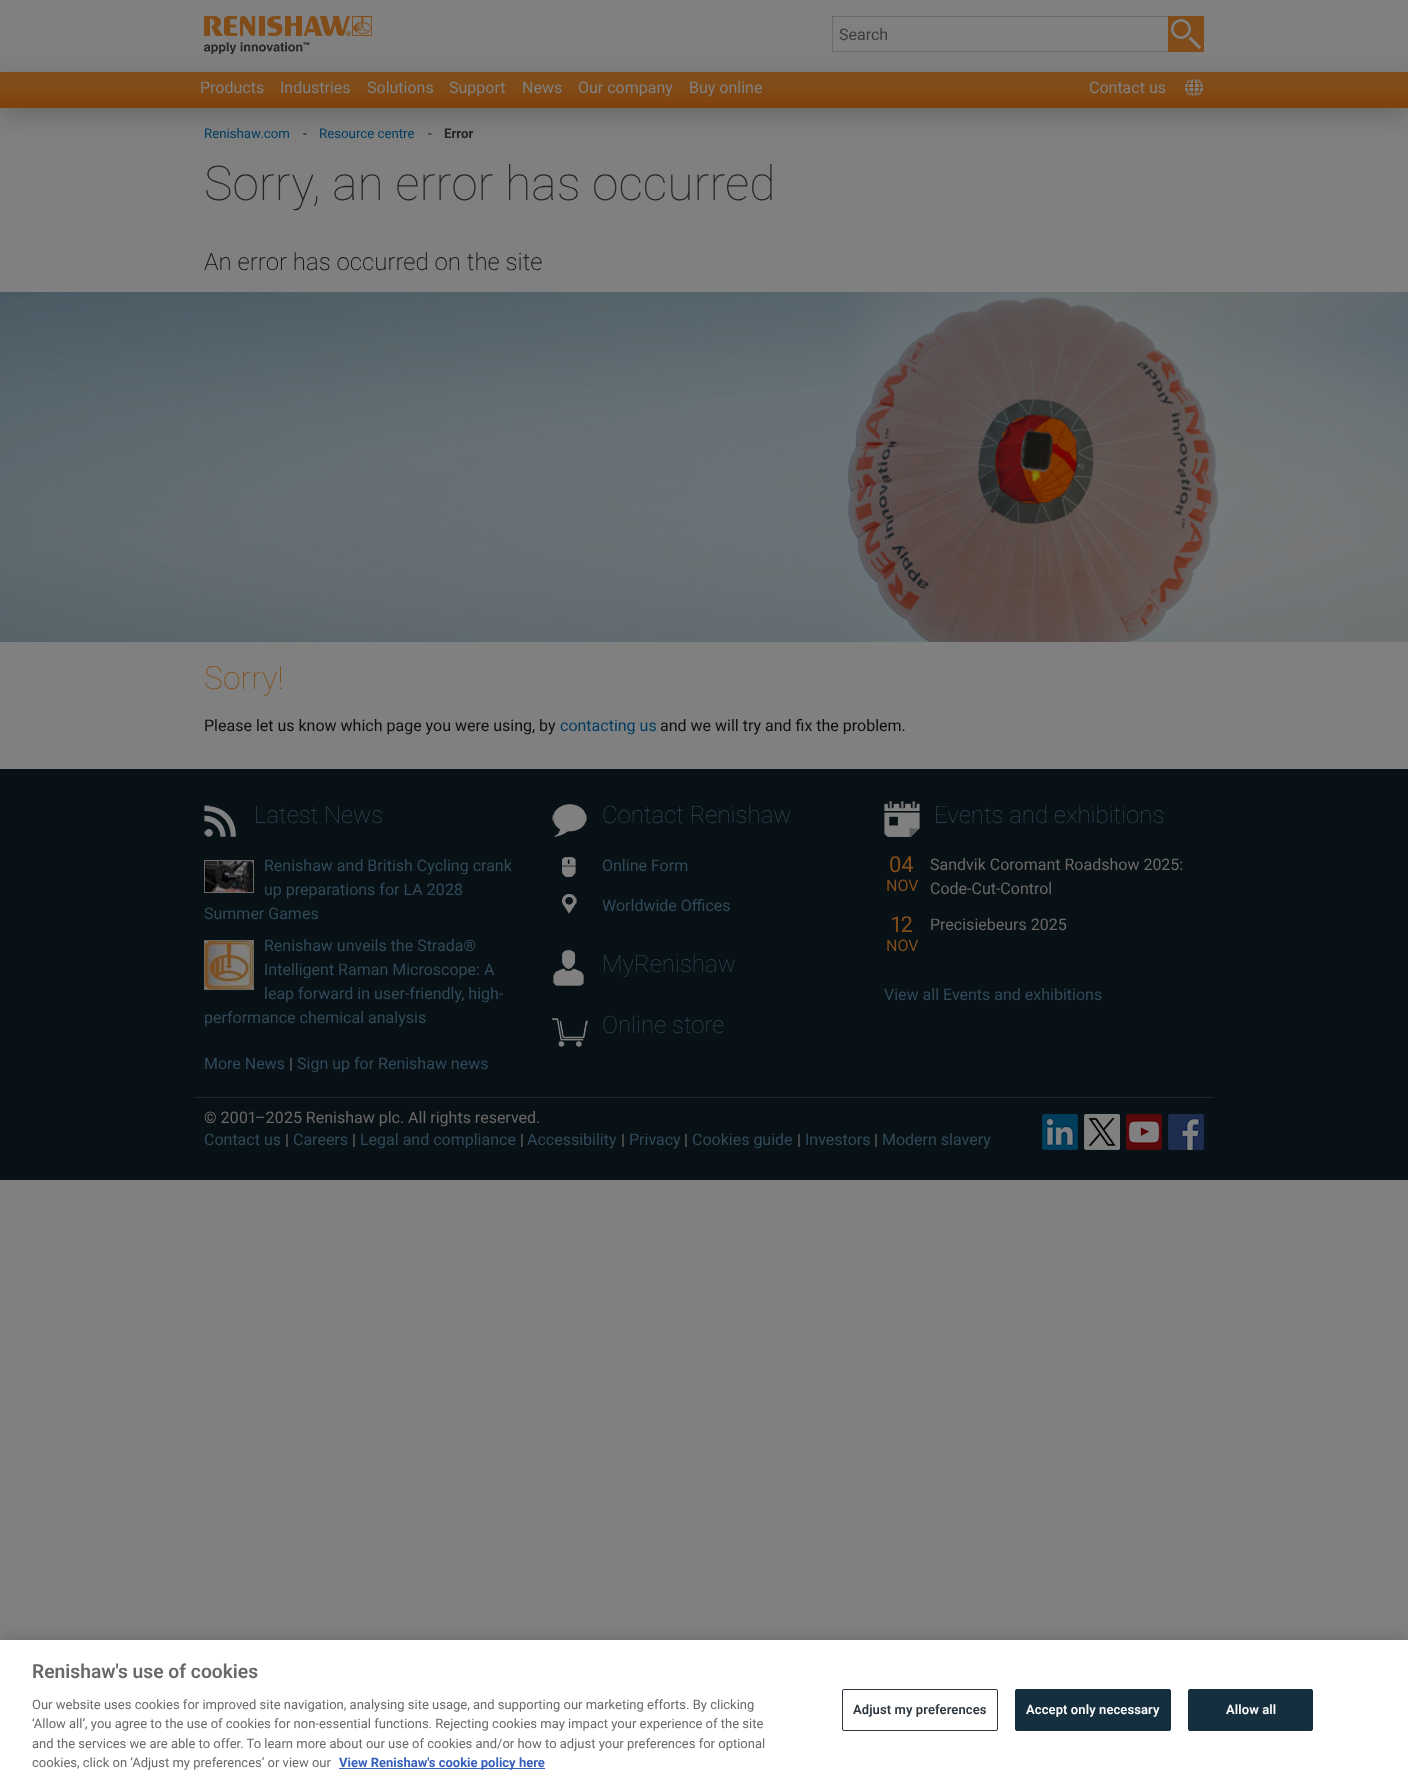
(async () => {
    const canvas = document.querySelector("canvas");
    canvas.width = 1408;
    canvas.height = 1783;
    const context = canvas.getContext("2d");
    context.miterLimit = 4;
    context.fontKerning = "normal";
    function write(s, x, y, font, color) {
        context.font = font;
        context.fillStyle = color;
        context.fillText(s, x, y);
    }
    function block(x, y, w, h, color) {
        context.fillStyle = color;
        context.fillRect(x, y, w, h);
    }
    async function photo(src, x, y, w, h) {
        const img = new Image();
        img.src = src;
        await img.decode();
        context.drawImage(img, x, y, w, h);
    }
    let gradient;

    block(0, 0, 1408, 1783, "rgb(128, 128, 128)");
    context.fillStyle = "rgba(17, 13, 11, 0.2)";
    context.filter = "blur(12px)";
    context.beginPath();
    context.rect(-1, 79, 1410, 38);
    context.fill();
    context.filter = "none";
    await photo("media/1.png", 204, 16, 168, 38);
    block(832, 16, 336, 1, "rgb(107, 104, 102)");
    block(832, 51, 336, 1, "rgb(107, 104, 102)");
    block(832, 16, 1, 36, "rgb(107, 104, 102)");
    write("Search", 839, 40, "16px Roboto", "rgb(59, 59, 59)");
    block(1169, 17, 34, 34, "rgb(128, 77, 26)");
    await photo("media/2.png", 1171, 19, 30, 30);
    context.strokeStyle = "rgb(128, 77, 26)";
    context.strokeRect(1168.5, 16.5, 35, 35);
    gradient = context.createLinearGradient(704, 72, 704, 108);
    gradient.addColorStop(0, "rgb(128, 77, 26)");
    gradient.addColorStop(0.3, "rgb(128, 77, 26)");
    gradient.addColorStop(1, "rgb(128, 65, 12)");
    context.fillStyle = gradient;
    context.fillRect(0, 72, 1408, 36);
    write("Products", 200, 93, "16px Roboto", "rgb(128, 128, 128)");
    write("Industries", 280, 93, "16px Roboto", "rgb(128, 128, 128)");
    write("Solutions", 367, 93, "16px Roboto", "rgb(128, 128, 128)");
    write("Support", 449, 93, "16px Roboto", "rgb(128, 128, 128)");
    write("News", 522, 93, "16px Roboto", "rgb(128, 128, 128)");
    write("Our company", 578, 93, "16px Roboto", "rgb(128, 128, 128)");
    write("Buy online", 689, 93, "16px Roboto", "rgb(128, 128, 128)");
    write("Contact us", 1089, 93, "16px Roboto", "rgb(128, 128, 128)");
    await photo("media/3.png", 1185, 79, 18, 17);
    write("Renishaw.com", 204, 138, "13.25px Roboto", "rgb(0, 61, 97)");
    write("-", 303, 138, "13.25px Roboto", "rgb(17, 13, 11)");
    write("Resource centre", 319, 138, "13.25px Roboto", "rgb(0, 61, 97)");
    write("-", 428, 138, "13.25px Roboto", "rgb(17, 13, 11)");
    write("Error", 444, 138, "bold 13.25px Roboto", "rgb(38, 36, 34)");
    write("Sorry, an error has occurred", 204, 200, "100 48px Roboto", "rgb(38, 36, 34)");
    write("An error has occurred on the site", 204, 270, "200 24px Roboto", "rgb(17, 13, 11)");
    await photo("media/4.png", 0, 292, 1408, 350);
    write("Sorry!", 204, 689, "100 32px Roboto", "rgb(128, 77, 26)");
    write("Please let us know which page you were using, by", 204, 731, "16px Roboto", "rgb(17, 13, 11)");
    write("contacting us", 560, 731, "16px Roboto", "rgb(0, 61, 97)");
    write("and we will try and fix the problem.", 660, 731, "16px Roboto", "rgb(17, 13, 11)");
    block(0, 769, 1408, 411, "rgb(8, 17, 22)");
    await photo("media/5.png", 204, 805, 32, 32);
    write("Latest News", 254, 823, "100 24px Roboto", "rgb(48, 74, 90)");
    write("Renishaw and British Cycling crank", 264, 871, "16px Roboto", "rgb(48, 74, 90)");
    write("up preparations for LA 2028", 264, 895, "16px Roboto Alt", "rgb(48, 74, 90)");
    write("Summer Games", 204, 919, "16px Roboto", "rgb(48, 74, 90)");
    context.strokeStyle = "rgb(107, 104, 102)";
    context.strokeRect(204.5, 860.5, 49, 32);
    await photo("media/6.png", 205, 861, 48, 31);
    write("Renishaw unveils the Strada®", 264, 951, "16px Roboto", "rgb(48, 74, 90)");
    write("Intelligent Raman Microscope: A", 264, 975, "16px Roboto", "rgb(48, 74, 90)");
    write("leap forward in user-friendly, high-", 264, 999, "16px Roboto", "rgb(48, 74, 90)");
    write("performance chemical analysis", 204, 1023, "16px Roboto", "rgb(48, 74, 90)");
    context.strokeRect(204.5, 940.5, 49, 49);
    await photo("media/7.png", 205, 941, 48, 48);
    write("More News", 204, 1069, "16px Roboto", "rgb(48, 74, 90)");
    write("|", 289, 1069, "16px Roboto", "rgb(107, 104, 102)");
    write("Sign up for Renishaw news", 297, 1069, "16px Roboto", "rgb(48, 74, 90)");
    await photo("media/8.png", 552, 804, 35, 33);
    write("Contact Renishaw", 602, 823, "100 24px Roboto", "rgb(48, 74, 90)");
    await photo("media/9.png", 562, 857, 14, 20);
    write("Online Form", 602, 871, "16px Roboto", "rgb(48, 74, 90)");
    await photo("media/10.png", 562, 894, 15, 20);
    write("Worldwide Offices", 602, 911, "16px Roboto", "rgb(48, 74, 90)");
    await photo("media/11.png", 553, 950, 31, 36);
    write("MyRenishaw", 602, 972, "100 24px Roboto", "rgb(48, 74, 90)");
    await photo("media/12.png", 552, 1018, 36, 29);
    write("Online store", 602, 1033, "100 24px Roboto", "rgb(48, 74, 90)");
    await photo("media/13.png", 884, 801, 36, 36);
    write("Events and exhibitions", 934, 823, "100 24px Roboto", "rgb(48, 74, 90)");
    write("04", 889, 872, "22px Roboto", "rgb(128, 77, 26)");
    write("NOV", 886, 891, "16px Roboto", "rgb(128, 77, 26)");
    write("Sandvik Coromant Roadshow 2025:", 930, 870, "16px Roboto", "rgb(107, 104, 102)");
    write("Code-Cut-Control", 930, 894, "16px Roboto", "rgb(107, 104, 102)");
    write("12", 891, 932, "22px Roboto Alt", "rgb(128, 77, 26)");
    write("NOV", 886, 951, "16px Roboto", "rgb(128, 77, 26)");
    write("Precisiebeurs 2025", 930, 930, "16px Roboto", "rgb(107, 104, 102)");
    write("View all Events and exhibitions", 884, 1000, "16px Roboto", "rgb(48, 74, 90)");
    block(194, 1097, 1020, 1, "rgb(38, 36, 34)");
    write("© 2001–2025 Renishaw plc. All rights reserved.", 204, 1123, "16px Roboto Alt", "rgb(107, 104, 102)");
    write("Contact us", 204, 1145, "16px Roboto", "rgb(48, 74, 90)");
    write("|", 285, 1145, "16px Roboto", "rgb(107, 104, 102)");
    write("Careers", 293, 1145, "16px Roboto", "rgb(48, 74, 90)");
    write("|", 352, 1145, "16px Roboto", "rgb(107, 104, 102)");
    write("Legal and compliance", 360, 1145, "16px Roboto", "rgb(48, 74, 90)");
    write("|", 520, 1145, "16px Roboto", "rgb(107, 104, 102)");
    write("Accessibility", 527, 1145, "16px Roboto", "rgb(48, 74, 90)");
    write("|", 621, 1145, "16px Roboto", "rgb(107, 104, 102)");
    write("Privacy", 629, 1145, "16px Roboto", "rgb(48, 74, 90)");
    write("|", 684, 1145, "16px Roboto", "rgb(107, 104, 102)");
    write("Cookies guide", 692, 1145, "16px Roboto", "rgb(48, 74, 90)");
    write("|", 797, 1145, "16px Roboto", "rgb(107, 104, 102)");
    write("Investors", 805, 1145, "16px Roboto", "rgb(48, 74, 90)");
    write("|", 874, 1145, "16px Roboto", "rgb(107, 104, 102)");
    write("Modern slavery", 882, 1145, "16px Roboto", "rgb(48, 74, 90)");
    await photo("media/14.png", 1042, 1114, 36, 36);
    await photo("media/15.png", 1084, 1114, 36, 36);
    await photo("media/16.png", 1126, 1114, 36, 36);
    await photo("media/17.png", 1168, 1114, 36, 36);
    context.fillStyle = "rgba(0, 0, 0, 0.2)";
    context.filter = "blur(9px)";
    context.beginPath();
    context.rect(0, 1640, 1408, 143);
    context.fill();
    context.filter = "none";
    block(0, 1640, 1408, 143, "rgb(255, 255, 255)");
    write("Renishaw's use of cookies", 32, 1678, "600 19.25px Roboto", "rgb(107, 104, 102)");
    write("Our website uses cookies for improved site navigation, analysing site usage, and supporting our marketing efforts. By clicking", 32, 1709, "13px Roboto", "rgb(107, 104, 102)");
    write("‘Allow all’, you agree to the use of cookies for non-essential functions. Rejecting cookies may impact your experience of the site", 32, 1728, "13px Roboto", "rgb(107, 104, 102)");
    write("and the services we are able to offer. To learn more about our use of cookies and/or how to adjust your preferences for optional", 32, 1748, "13px Roboto", "rgb(107, 104, 102)");
    write("cookies, click on ‘Adjust my preferences’ or view our", 32, 1767, "13px Roboto", "rgb(107, 104, 102)");
    block(339, 1768, 206, 1, "rgb(56, 96, 190)");
    write("View Renishaw's cookie policy here", 339, 1767, "bold 13px Roboto", "rgb(56, 96, 190)");
    context.beginPath();
    context.roundRect(842.5, 1689.5, 155, 41, 1.5);
    context.strokeStyle = "rgb(44, 54, 63)";
    context.stroke();
    context.letterSpacing = "0.1px";
    write("Adjust my preferences", 853, 1714, "600 13px Roboto", "rgb(44, 54, 63)");
    context.fillStyle = "rgb(21, 47, 63)";
    context.beginPath();
    context.roundRect(1015.5, 1689.5, 155, 41, 1.5);
    context.fill();
    context.strokeStyle = "rgb(21, 47, 63)";
    context.stroke();
    write("Accept only necessary", 1026, 1714, "600 13px Roboto", "rgb(255, 255, 255)");
    context.fillStyle = "rgb(21, 47, 63)";
    context.beginPath();
    context.roundRect(1188.5, 1689.5, 124, 41, 1.5);
    context.fill();
    context.stroke();
    write("Allow all", 1226, 1714, "600 13px Roboto", "rgb(255, 255, 255)");
})();
